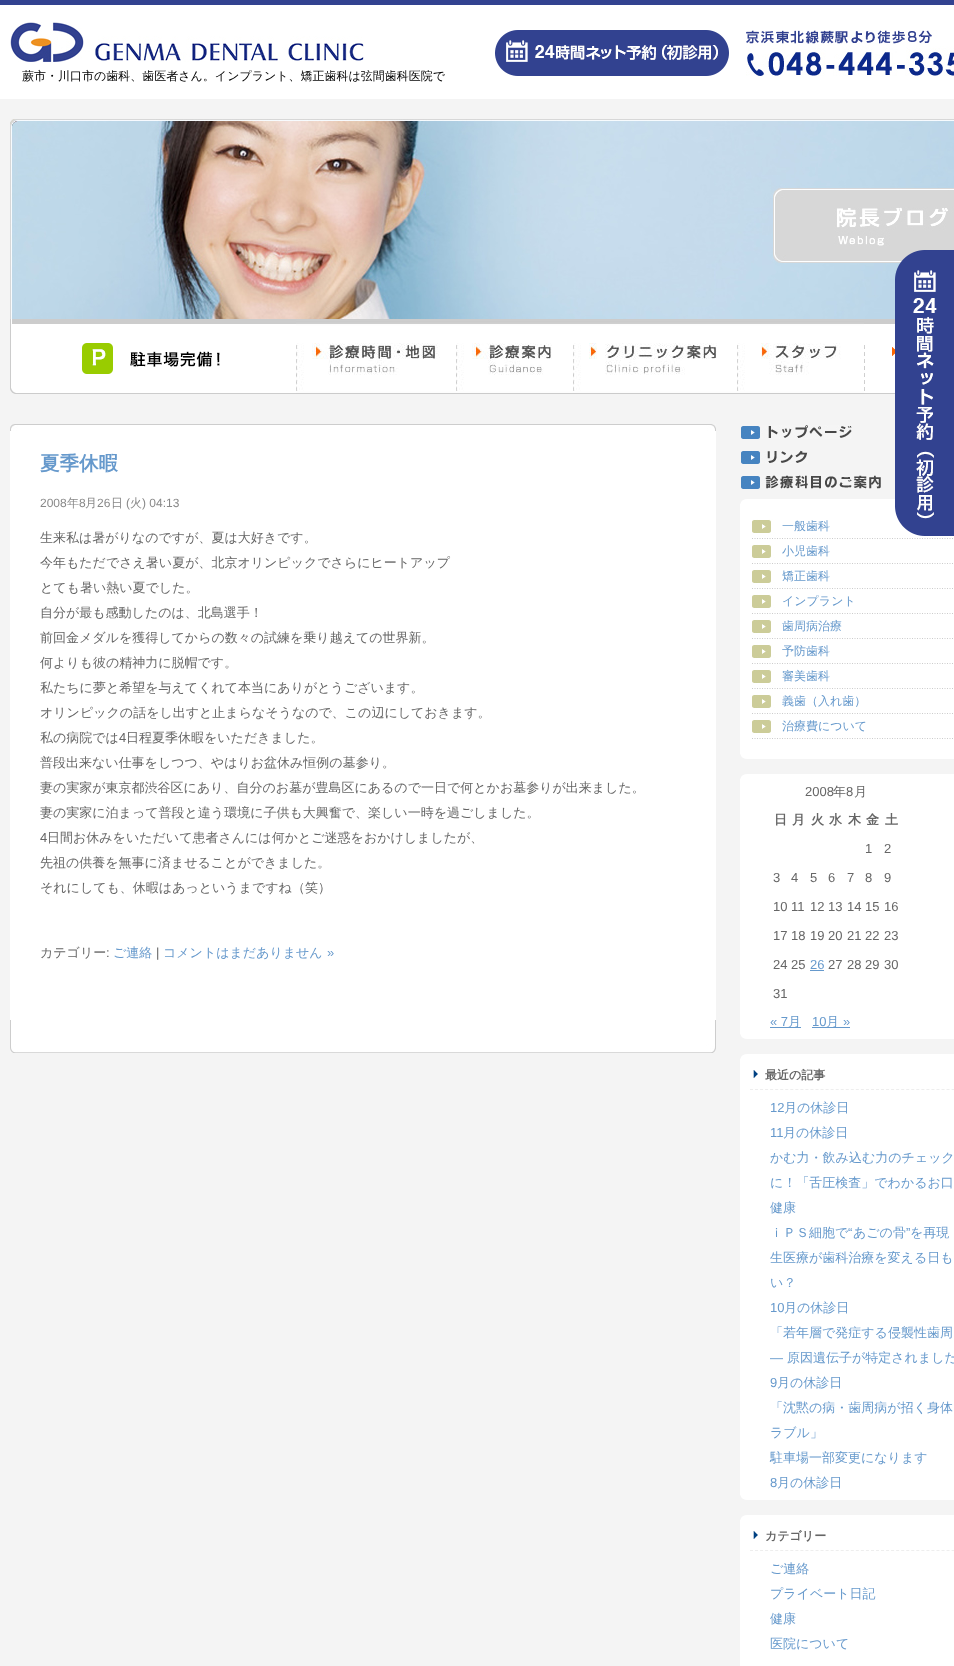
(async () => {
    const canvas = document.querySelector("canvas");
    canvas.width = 954;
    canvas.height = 1666;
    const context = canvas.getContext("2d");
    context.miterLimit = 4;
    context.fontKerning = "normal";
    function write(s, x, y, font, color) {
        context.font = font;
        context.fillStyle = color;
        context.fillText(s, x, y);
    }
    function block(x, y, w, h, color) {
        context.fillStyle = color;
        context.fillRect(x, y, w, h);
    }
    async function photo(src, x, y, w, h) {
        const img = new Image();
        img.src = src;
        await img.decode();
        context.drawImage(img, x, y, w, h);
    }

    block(0, 0, 954, 1666, "rgb(244, 244, 244)");
    block(0, 5, 954, 94, "rgb(255, 255, 255)");
    block(0, 0, 954, 5, "rgb(50, 66, 144)");
    await photo("media/1.png", 10, 22, 354, 40);
    write("蕨市・川口市の歯科、歯医者さん。インプラント、矯正歯科は弦間歯科医院で", 22, 80, "500 12px WenQuanYi Zen Hei", "rgb(0, 0, 0)");
    await photo("media/2.png", 495, 30, 234, 46);
    await photo("media/3.png", 746, 30, 208, 46);
    await photo("media/4.png", 10, 119, 944, 200);
    await photo("media/5.png", 10, 319, 286, 75);
    await photo("media/6.png", 296, 392, 160, 2);
    await photo("media/7.png", 296, 319, 160, 73);
    await photo("media/8.png", 456, 392, 117, 2);
    await photo("media/9.png", 456, 319, 117, 73);
    await photo("media/10.png", 573, 392, 164, 2);
    await photo("media/11.png", 573, 319, 164, 73);
    await photo("media/12.png", 737, 392, 127, 2);
    await photo("media/13.png", 737, 319, 127, 73);
    await photo("media/14.png", 864, 392, 31, 2);
    await photo("media/15.png", 864, 319, 31, 73);
    block(740, 504, 214, 250, "rgb(255, 255, 255)");
    await photo("media/23.png", 752, 519, 201, 20);
    await photo("media/16.png", 895, 250, 59, 286);
    await photo("media/17.png", 10, 424, 706, 7);
    block(10, 431, 706, 589, "rgb(255, 255, 255)");
    write("夏季休暇", 40, 470, "bold 19.5px WenQuanYi Zen Hei", "rgb(102, 153, 204)");
    write("2008", 40, 507, "12px Liberation Sans", "rgb(136, 136, 136)");
    write("年", 67, 507, "500 12px WenQuanYi Zen Hei", "rgb(136, 136, 136)");
    write("8", 79, 507, "12px Liberation Sans", "rgb(136, 136, 136)");
    write("月", 85, 507, "500 12px WenQuanYi Zen Hei", "rgb(136, 136, 136)");
    write("26", 97, 507, "12px Liberation Sans", "rgb(136, 136, 136)");
    write("日", 111, 507, "500 12px WenQuanYi Zen Hei", "rgb(136, 136, 136)");
    write("(", 126, 507, "12px Liberation Sans", "rgb(136, 136, 136)");
    write("火", 130, 507, "500 12px WenQuanYi Zen Hei", "rgb(136, 136, 136)");
    write(") 04:13", 142, 507, "12px Liberation Sans", "rgb(136, 136, 136)");
    write("生来私は暑がりなのですが、夏は大好きです。", 40, 542, "500 13px WenQuanYi Zen Hei", "rgb(102, 102, 102)");
    write("今年もただでさえ暑い夏が、北京オリンピックでさらにヒートアップ", 40, 567, "500 13px WenQuanYi Zen Hei", "rgb(102, 102, 102)");
    write("とても暑い熱い夏でした。", 40, 592, "500 13px WenQuanYi Zen Hei", "rgb(102, 102, 102)");
    write("自分が最も感動したのは、北島選手！", 40, 617, "500 13px WenQuanYi Zen Hei", "rgb(102, 102, 102)");
    write("前回金メダルを獲得してからの数々の試練を乗り越えての世界新。", 40, 642, "500 13px WenQuanYi Zen Hei", "rgb(102, 102, 102)");
    write("何よりも彼の精神力に脱帽です。", 40, 667, "500 13px WenQuanYi Zen Hei", "rgb(102, 102, 102)");
    write("私たちに夢と希望を与えてくれて本当にありがとうございます。", 40, 692, "500 13px WenQuanYi Zen Hei", "rgb(102, 102, 102)");
    write("オリンピックの話をし出すと止まらなそうなので、この辺にしておきます。", 40, 717, "500 13px WenQuanYi Zen Hei", "rgb(102, 102, 102)");
    write("私の病院では", 40, 742, "500 13px WenQuanYi Zen Hei", "rgb(102, 102, 102)");
    write("4", 119, 742, "13px Liberation Sans", "rgb(102, 102, 102)");
    write("日程夏季休暇をいただきました。", 126, 742, "500 13px WenQuanYi Zen Hei", "rgb(102, 102, 102)");
    write("普段出来ない仕事をしつつ、やはりお盆休み恒例の墓参り。", 40, 767, "500 13px WenQuanYi Zen Hei", "rgb(102, 102, 102)");
    write("妻の実家が東京都渋谷区にあり、自分のお墓が豊島区にあるので一日で何とかお墓参りが出来ました。", 40, 792, "500 13px WenQuanYi Zen Hei", "rgb(102, 102, 102)");
    write("妻の実家に泊まって普段と違う環境に子供も大興奮で、楽しい一時を過ごしました。", 40, 817, "500 13px WenQuanYi Zen Hei", "rgb(102, 102, 102)");
    write("4", 40, 842, "13px Liberation Sans", "rgb(102, 102, 102)");
    write("日間お休みをいただいて患者さんには何かとご迷惑をおかけしましたが、", 47, 842, "500 13px WenQuanYi Zen Hei", "rgb(102, 102, 102)");
    write("先祖の供養を無事に済ませることができました。", 40, 867, "500 13px WenQuanYi Zen Hei", "rgb(102, 102, 102)");
    write("それにしても、休暇はあっというまですね（笑）", 40, 892, "500 13px WenQuanYi Zen Hei", "rgb(102, 102, 102)");
    write("カテゴリー", 40, 957, "500 13px WenQuanYi Zen Hei", "rgb(102, 102, 102)");
    write(":", 106, 957, "13px Liberation Sans", "rgb(102, 102, 102)");
    write("ご連絡", 113, 957, "500 13px WenQuanYi Zen Hei", "rgb(102, 153, 204)");
    write("|", 156, 957, "13px Liberation Sans", "rgb(102, 102, 102)");
    write("コメントはまだありません", 163, 957, "500 13px WenQuanYi Zen Hei", "rgb(102, 153, 204)");
    write("»", 327, 957, "13px Liberation Sans", "rgb(102, 153, 204)");
    await photo("media/18.png", 10, 1020, 706, 33);
    await photo("media/19.png", 741, 425, 111, 14);
    await photo("media/20.png", 741, 450, 67, 14);
    await photo("media/21.png", 741, 475, 140, 14);
    await photo("media/22.png", 740, 499, 155, 5);
    write("一般歯科", 782, 530, "500 12px WenQuanYi Zen Hei", "rgb(102, 153, 204)");
    await photo("media/23.png", 752, 544, 201, 20);
    write("小児歯科", 782, 555, "500 12px WenQuanYi Zen Hei", "rgb(102, 153, 204)");
    await photo("media/23.png", 752, 569, 201, 20);
    write("矯正歯科", 782, 580, "500 12px WenQuanYi Zen Hei", "rgb(102, 153, 204)");
    await photo("media/23.png", 752, 594, 201, 20);
    write("インプラント", 782, 605, "500 12px WenQuanYi Zen Hei", "rgb(102, 153, 204)");
    await photo("media/23.png", 752, 619, 201, 20);
    write("歯周病治療", 782, 630, "500 12px WenQuanYi Zen Hei", "rgb(102, 153, 204)");
    await photo("media/23.png", 752, 644, 201, 20);
    write("予防歯科", 782, 655, "500 12px WenQuanYi Zen Hei", "rgb(102, 153, 204)");
    await photo("media/23.png", 752, 669, 201, 20);
    write("審美歯科", 782, 680, "500 12px WenQuanYi Zen Hei", "rgb(102, 153, 204)");
    await photo("media/23.png", 752, 694, 201, 20);
    write("義歯（入れ歯）", 782, 705, "500 12px WenQuanYi Zen Hei", "rgb(102, 153, 204)");
    await photo("media/23.png", 752, 719, 201, 20);
    write("治療費について", 782, 730, "500 12px WenQuanYi Zen Hei", "rgb(102, 153, 204)");
    await photo("media/24.png", 740, 754, 214, 5);
    await photo("media/25.png", 740, 774, 214, 5);
    block(740, 779, 214, 255, "rgb(255, 255, 255)");
    write("2008", 805, 796, "13px Liberation Sans", "rgb(102, 102, 102)");
    write("年", 833, 796, "500 13px WenQuanYi Zen Hei", "rgb(102, 102, 102)");
    write("8", 846, 796, "13px Liberation Sans", "rgb(102, 102, 102)");
    write("月", 854, 796, "500 13px WenQuanYi Zen Hei", "rgb(102, 102, 102)");
    write("日", 774, 824, "bold 13px WenQuanYi Zen Hei", "rgb(102, 102, 102)");
    write("月", 792, 824, "bold 13px WenQuanYi Zen Hei", "rgb(102, 102, 102)");
    write("火", 811, 824, "bold 13px WenQuanYi Zen Hei", "rgb(102, 102, 102)");
    write("水", 829, 824, "bold 13px WenQuanYi Zen Hei", "rgb(102, 102, 102)");
    write("木", 848, 824, "bold 13px WenQuanYi Zen Hei", "rgb(102, 102, 102)");
    write("金", 866, 824, "bold 13px WenQuanYi Zen Hei", "rgb(102, 102, 102)");
    write("土", 885, 824, "bold 13px WenQuanYi Zen Hei", "rgb(102, 102, 102)");
    write("1", 865, 853, "13px Liberation Sans", "rgb(102, 102, 102)");
    write("2", 884, 853, "13px Liberation Sans", "rgb(102, 102, 102)");
    write("3", 773, 882, "13px Liberation Sans", "rgb(102, 102, 102)");
    write("4", 791, 882, "13px Liberation Sans", "rgb(102, 102, 102)");
    write("5", 810, 882, "13px Liberation Sans", "rgb(102, 102, 102)");
    write("6", 828, 882, "13px Liberation Sans", "rgb(102, 102, 102)");
    write("7", 847, 882, "13px Liberation Sans", "rgb(102, 102, 102)");
    write("8", 865, 882, "13px Liberation Sans", "rgb(102, 102, 102)");
    write("9", 884, 882, "13px Liberation Sans", "rgb(102, 102, 102)");
    write("10", 773, 911, "13px Liberation Sans", "rgb(102, 102, 102)");
    write("11", 791, 911, "13px Liberation Sans", "rgb(102, 102, 102)");
    write("12", 810, 911, "13px Liberation Sans", "rgb(102, 102, 102)");
    write("13", 828, 911, "13px Liberation Sans", "rgb(102, 102, 102)");
    write("14", 847, 911, "13px Liberation Sans", "rgb(102, 102, 102)");
    write("15", 865, 911, "13px Liberation Sans", "rgb(102, 102, 102)");
    write("16", 884, 911, "13px Liberation Sans", "rgb(102, 102, 102)");
    write("17", 773, 940, "13px Liberation Sans", "rgb(102, 102, 102)");
    write("18", 791, 940, "13px Liberation Sans", "rgb(102, 102, 102)");
    write("19", 810, 940, "13px Liberation Sans", "rgb(102, 102, 102)");
    write("20", 828, 940, "13px Liberation Sans", "rgb(102, 102, 102)");
    write("21", 847, 940, "13px Liberation Sans", "rgb(102, 102, 102)");
    write("22", 865, 940, "13px Liberation Sans", "rgb(102, 102, 102)");
    write("23", 884, 940, "13px Liberation Sans", "rgb(102, 102, 102)");
    write("24", 773, 969, "13px Liberation Sans", "rgb(102, 102, 102)");
    write("25", 791, 969, "13px Liberation Sans", "rgb(102, 102, 102)");
    write("26", 810, 969, "13px Liberation Sans", "rgb(102, 153, 204)");
    block(810, 970, 14, 1, "rgb(102, 153, 204)");
    write("27", 828, 969, "13px Liberation Sans", "rgb(102, 102, 102)");
    write("28", 847, 969, "13px Liberation Sans", "rgb(102, 102, 102)");
    write("29", 865, 969, "13px Liberation Sans", "rgb(102, 102, 102)");
    write("30", 884, 969, "13px Liberation Sans", "rgb(102, 102, 102)");
    write("31", 773, 998, "13px Liberation Sans", "rgb(102, 102, 102)");
    write("« 7", 770, 1026, "13px Liberation Sans", "rgb(102, 153, 204)");
    block(770, 1027, 31, 1, "rgb(102, 153, 204)");
    write("月", 788, 1026, "500 13px WenQuanYi Zen Hei", "rgb(102, 153, 204)");
    write("10", 812, 1026, "13px Liberation Sans", "rgb(102, 153, 204)");
    block(812, 1027, 38, 1, "rgb(102, 153, 204)");
    write("月", 826, 1026, "500 13px WenQuanYi Zen Hei", "rgb(102, 153, 204)");
    write("»", 843, 1026, "13px Liberation Sans", "rgb(102, 153, 204)");
    await photo("media/24.png", 740, 1034, 214, 5);
    await photo("media/25.png", 740, 1054, 214, 5);
    block(740, 1059, 214, 436, "rgb(255, 255, 255)");
    await photo("media/26.png", 753, 1070, 5, 8);
    context.beginPath();
    context.moveTo(750, 1089.5);
    context.lineTo(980, 1089.5);
    context.strokeStyle = "rgb(238, 238, 238)";
    context.setLineDash([3, 2.04]);
    context.stroke();
    write("最近の記事", 765, 1079, "bold 12px WenQuanYi Zen Hei", "rgb(102, 102, 102)");
    write("12", 770, 1112, "13px Liberation Sans", "rgb(102, 153, 204)");
    write("月の休診日", 784, 1112, "500 13px WenQuanYi Zen Hei", "rgb(102, 153, 204)");
    write("11", 770, 1137, "13px Liberation Sans", "rgb(102, 153, 204)");
    write("月の休診日", 783, 1137, "500 13px WenQuanYi Zen Hei", "rgb(102, 153, 204)");
    write("かむ力・飲み込む力のチェック", 770, 1162, "500 13px WenQuanYi Zen Hei", "rgb(102, 153, 204)");
    write("に！「舌圧検査」でわかるお口", 770, 1187, "500 13px WenQuanYi Zen Hei", "rgb(102, 153, 204)");
    write("健康", 770, 1212, "500 13px WenQuanYi Zen Hei", "rgb(102, 153, 204)");
    write("ｉＰＳ細胞で", 770, 1237, "500 13px WenQuanYi Zen Hei", "rgb(102, 153, 204)");
    write("“", 848, 1237, "13px Liberation Sans", "rgb(102, 153, 204)");
    write("あごの骨", 853, 1237, "500 13px WenQuanYi Zen Hei", "rgb(102, 153, 204)");
    write("”", 906, 1237, "13px Liberation Sans", "rgb(102, 153, 204)");
    write("を再現", 910, 1237, "500 13px WenQuanYi Zen Hei", "rgb(102, 153, 204)");
    write("生医療が歯科治療を変える日も", 770, 1262, "500 13px WenQuanYi Zen Hei", "rgb(102, 153, 204)");
    write("い？", 770, 1287, "500 13px WenQuanYi Zen Hei", "rgb(102, 153, 204)");
    write("10", 770, 1312, "13px Liberation Sans", "rgb(102, 153, 204)");
    write("月の休診日", 784, 1312, "500 13px WenQuanYi Zen Hei", "rgb(102, 153, 204)");
    write("「若年層で発症する侵襲性歯周", 770, 1337, "500 13px WenQuanYi Zen Hei", "rgb(102, 153, 204)");
    write("―", 770, 1362, "13px Liberation Sans", "rgb(102, 153, 204)");
    write("原因遺伝子が特定されました", 787, 1362, "500 13px WenQuanYi Zen Hei", "rgb(102, 153, 204)");
    write("9", 770, 1387, "13px Liberation Sans", "rgb(102, 153, 204)");
    write("月の休診日", 777, 1387, "500 13px WenQuanYi Zen Hei", "rgb(102, 153, 204)");
    write("「沈黙の病・歯周病が招く身体", 770, 1412, "500 13px WenQuanYi Zen Hei", "rgb(102, 153, 204)");
    write("ラブル」", 770, 1437, "500 13px WenQuanYi Zen Hei", "rgb(102, 153, 204)");
    write("駐車場一部変更になります", 770, 1462, "500 13px WenQuanYi Zen Hei", "rgb(102, 153, 204)");
    write("8", 770, 1487, "13px Liberation Sans", "rgb(102, 153, 204)");
    write("月の休診日", 777, 1487, "500 13px WenQuanYi Zen Hei", "rgb(102, 153, 204)");
    await photo("media/24.png", 740, 1495, 214, 5);
    await photo("media/25.png", 740, 1515, 214, 5);
    block(740, 1520, 214, 146, "rgb(255, 255, 255)");
    await photo("media/26.png", 753, 1531, 5, 8);
    context.beginPath();
    context.moveTo(750, 1550.5);
    context.lineTo(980, 1550.5);
    context.stroke();
    write("カテゴリー", 765, 1540, "bold 12px WenQuanYi Zen Hei", "rgb(102, 102, 102)");
    write("ご連絡", 770, 1573, "500 13px WenQuanYi Zen Hei", "rgb(102, 153, 204)");
    write("プライベート日記", 770, 1598, "500 13px WenQuanYi Zen Hei", "rgb(102, 153, 204)");
    write("健康", 770, 1623, "500 13px WenQuanYi Zen Hei", "rgb(102, 153, 204)");
    write("医院について", 770, 1648, "500 13px WenQuanYi Zen Hei", "rgb(102, 153, 204)");
})();
